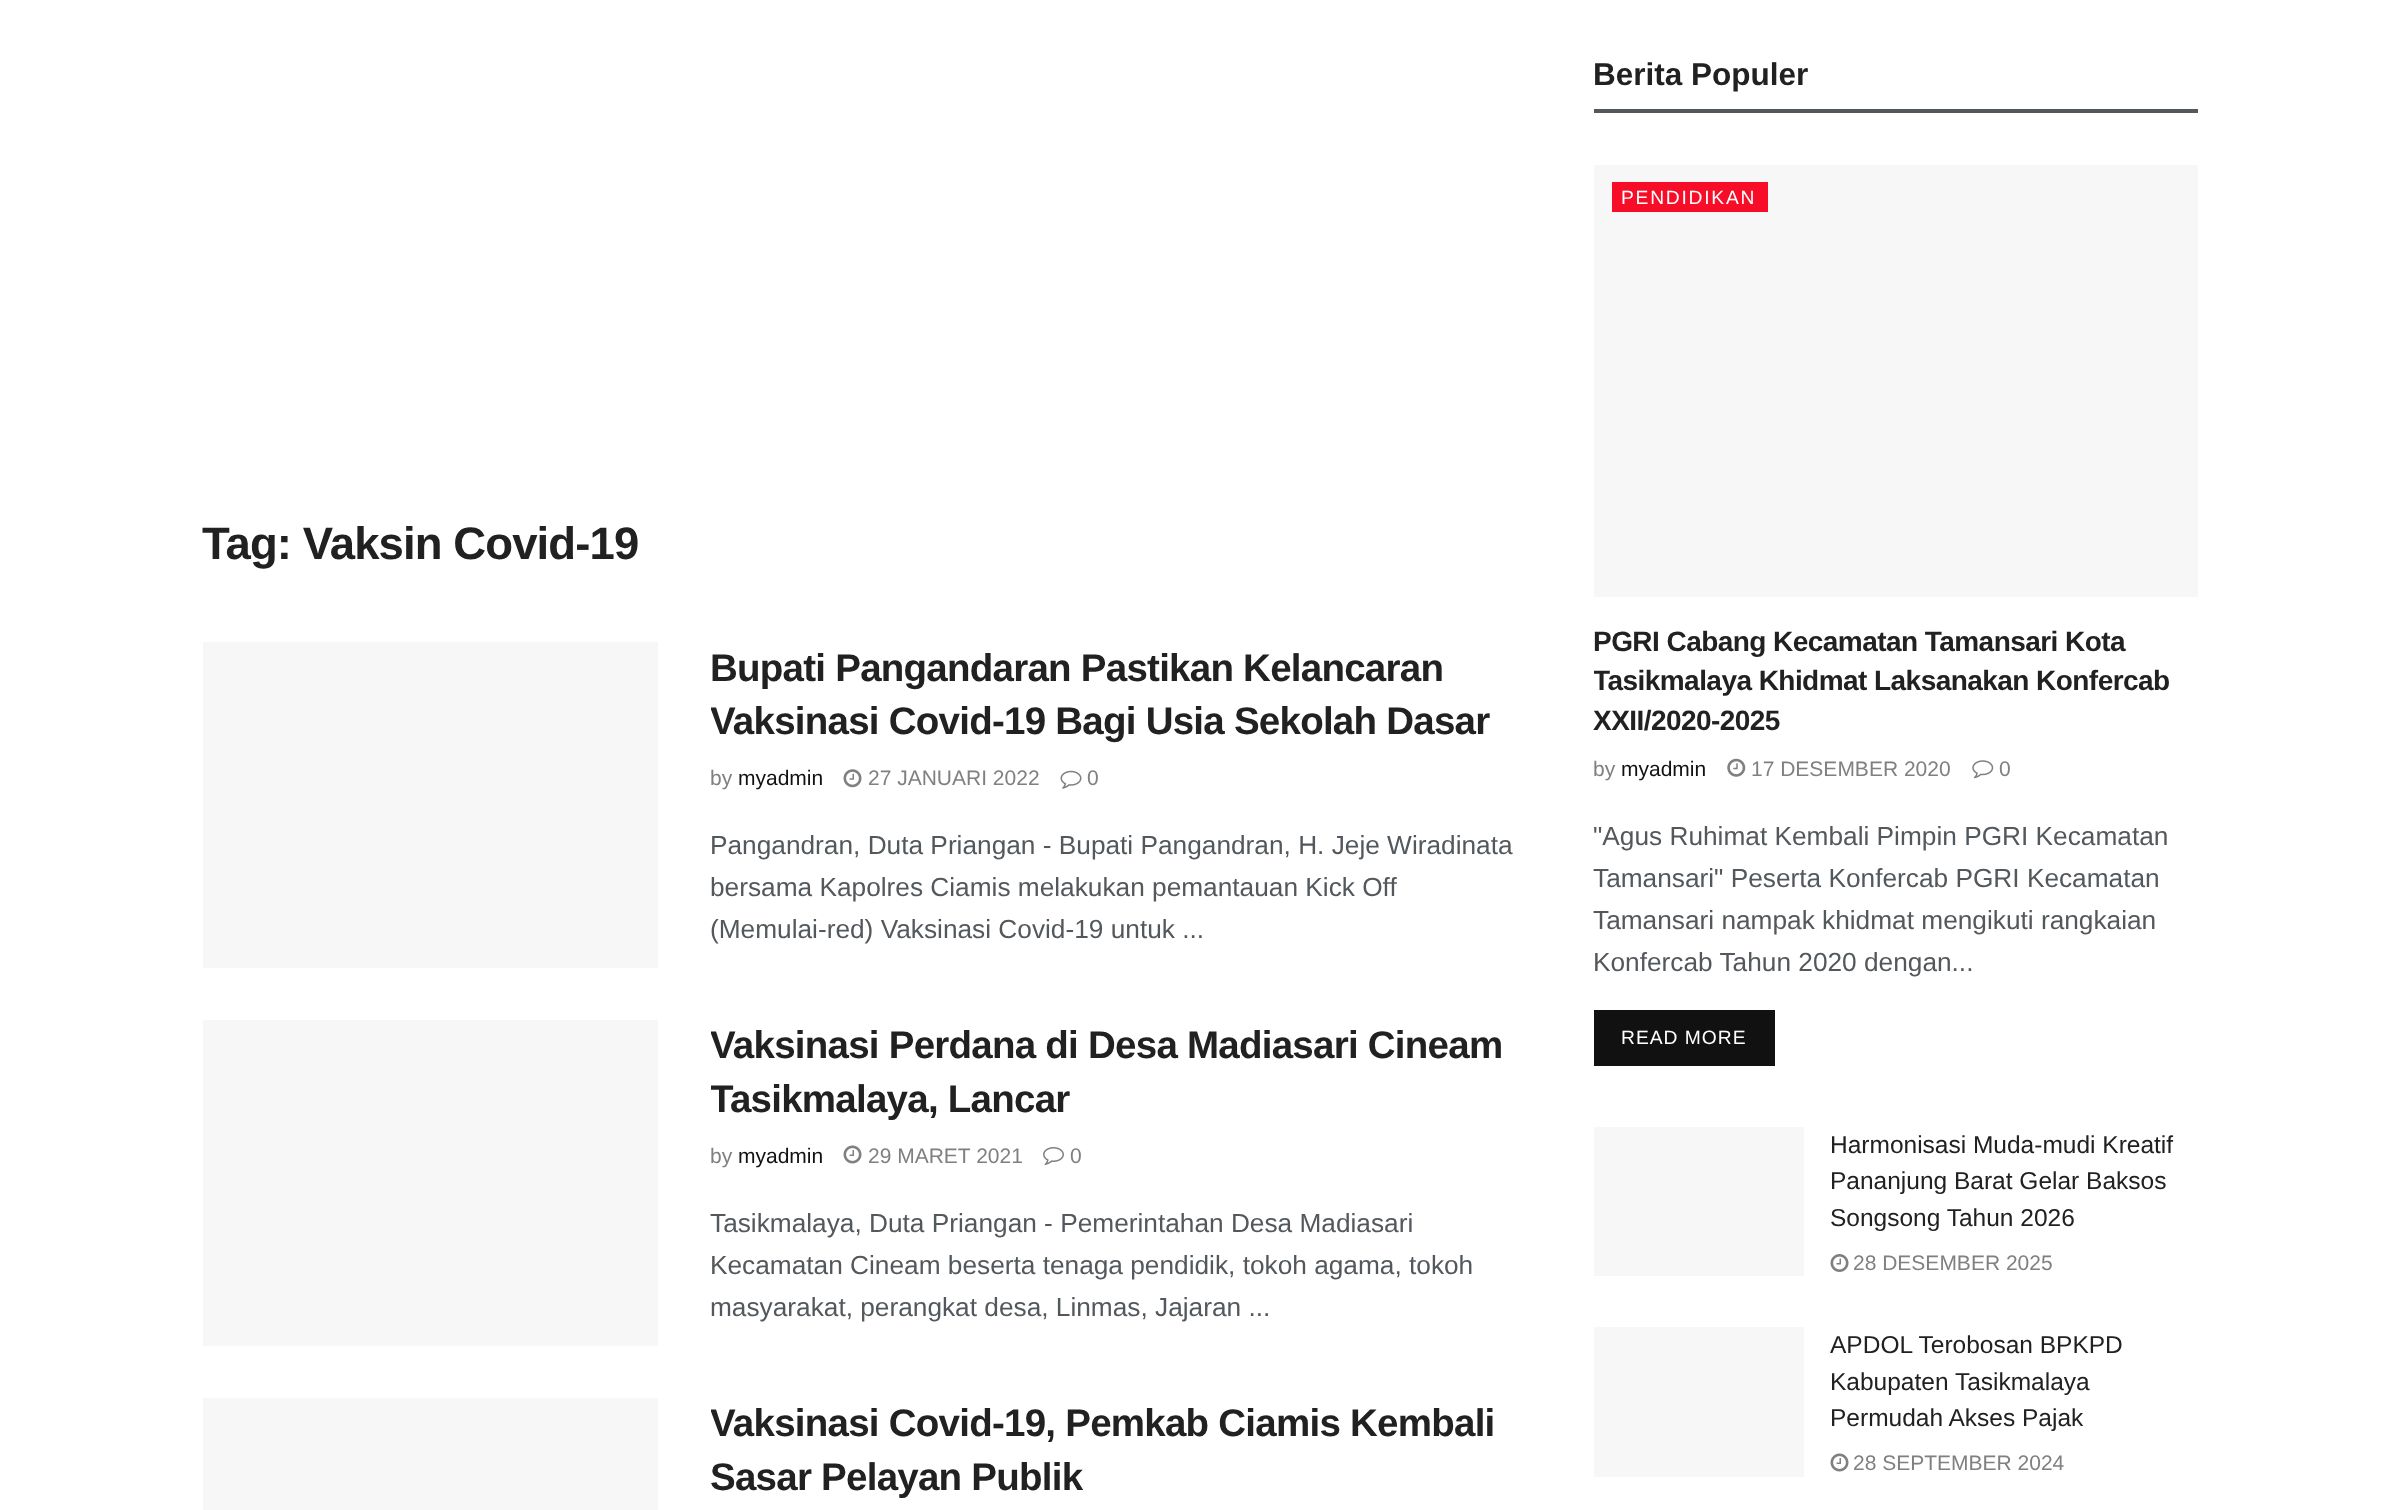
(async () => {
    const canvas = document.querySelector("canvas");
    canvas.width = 2398;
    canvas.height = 1510;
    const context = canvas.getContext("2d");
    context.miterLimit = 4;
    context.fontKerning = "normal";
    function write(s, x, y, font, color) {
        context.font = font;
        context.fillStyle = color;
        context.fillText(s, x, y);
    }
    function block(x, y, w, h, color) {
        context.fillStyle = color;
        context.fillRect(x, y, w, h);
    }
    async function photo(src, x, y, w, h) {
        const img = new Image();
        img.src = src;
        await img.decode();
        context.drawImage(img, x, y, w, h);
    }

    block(0, 0, 2398, 1510, "rgb(255, 255, 255)");
    context.letterSpacing = "-0.9px";
    write("Tag: Vaksin Covid-19", 202, 559, "bold 45.5px Liberation Sans", "rgb(33, 33, 33)");
    block(203, 642, 455, 326, "rgb(247, 247, 247)");
    context.letterSpacing = "-0.75px";
    write("Bupati Pangandaran Pastikan Kelancaran", 710, 681, "bold 38.5px Liberation Sans", "rgb(33, 33, 33)");
    context.save();
    context.beginPath();
    context.rect(711, 642, 805, 308);
    context.clip();
    write("Vaksinasi Covid-19 Bagi Usia Sekolah Dasar", 710, 734, "bold 38.5px Liberation Sans", "rgb(33, 33, 33)");
    context.restore();
    context.letterSpacing = "0px";
    write("by", 710, 785, "21px Liberation Sans", "rgb(128, 128, 128)");
    write("myadmin", 738, 785, "21px Liberation Sans", "rgb(17, 17, 17)");
    await photo("media/1.png", 843, 769, 19, 19);
    write("27 JANUARI 2022", 868, 785, "21px Liberation Sans", "rgb(128, 128, 128)");
    await photo("media/2.png", 1060, 770, 22, 19);
    write("0", 1087, 785, "21px Liberation Sans", "rgb(128, 128, 128)");
    write("Pangandran, Duta Priangan - Bupati Pangandran, H. Jeje Wiradinata", 710, 854, "26.25px Liberation Sans", "rgb(83, 88, 92)");
    write("bersama Kapolres Ciamis melakukan pemantauan Kick Off", 710, 896, "26.25px Liberation Sans", "rgb(83, 88, 92)");
    write("(Memulai-red) Vaksinasi Covid-19 untuk ...", 710, 938, "26.25px Liberation Sans", "rgb(83, 88, 92)");
    block(203, 1020, 455, 326, "rgb(247, 247, 247)");
    context.save();
    context.beginPath();
    context.rect(711, 1020, 805, 308);
    context.clip();
    context.letterSpacing = "-0.75px";
    write("Vaksinasi Perdana di Desa Madiasari Cineam", 710, 1058, "bold 38.5px Liberation Sans", "rgb(33, 33, 33)");
    write("Tasikmalaya, Lancar", 710, 1112, "bold 38.5px Liberation Sans", "rgb(33, 33, 33)");
    context.restore();
    write("by", 710, 1163, "21px Liberation Sans", "rgb(128, 128, 128)");
    write("myadmin", 738, 1163, "21px Liberation Sans", "rgb(17, 17, 17)");
    await photo("media/3.png", 843, 1145, 19, 19);
    write("29 MARET 2021", 868, 1163, "21px Liberation Sans", "rgb(128, 128, 128)");
    await photo("media/4.png", 1043, 1147, 21, 18);
    write("0", 1070, 1163, "21px Liberation Sans", "rgb(128, 128, 128)");
    write("Tasikmalaya, Duta Priangan - Pemerintahan Desa Madiasari", 710, 1232, "26.25px Liberation Sans", "rgb(83, 88, 92)");
    write("Kecamatan Cineam beserta tenaga pendidik, tokoh agama, tokoh", 710, 1274, "26.25px Liberation Sans", "rgb(83, 88, 92)");
    write("masyarakat, perangkat desa, Linmas, Jajaran ...", 710, 1316, "26.25px Liberation Sans", "rgb(83, 88, 92)");
    block(203, 1398, 455, 112, "rgb(247, 247, 247)");
    context.save();
    context.beginPath();
    context.rect(711, 1398, 805, 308);
    context.clip();
    context.letterSpacing = "-0.75px";
    write("Vaksinasi Covid-19, Pemkab Ciamis Kembali", 710, 1436, "bold 38.5px Liberation Sans", "rgb(33, 33, 33)");
    context.restore();
    context.letterSpacing = "-0.75px";
    write("Sasar Pelayan Publik", 710, 1490, "bold 38.5px Liberation Sans", "rgb(33, 33, 33)");
    block(1594, 109, 604, 4, "rgb(83, 88, 92)");
    context.letterSpacing = "0px";
    write("Berita Populer", 1593, 85, "bold 31.5px Liberation Sans", "rgb(33, 33, 33)");
    block(1594, 165, 604, 432, "rgb(247, 247, 247)");
    block(1612, 182, 156, 30, "rgb(247, 13, 40)");
    context.letterSpacing = "1.75px";
    write("PENDIDIKAN", 1621, 204, "19.25px Liberation Sans", "rgb(255, 255, 255)");
    context.letterSpacing = "-0.55px";
    write("PGRI Cabang Kecamatan Tamansari Kota", 1593, 651, "bold 28px Liberation Sans", "rgb(33, 33, 33)");
    context.save();
    context.beginPath();
    context.rect(1594, 597, 604, 478);
    context.clip();
    write("Tasikmalaya Khidmat Laksanakan Konfercab", 1593, 690, "bold 28px Liberation Sans", "rgb(33, 33, 33)");
    context.restore();
    write("XXII/2020-2025", 1593, 730, "bold 28px Liberation Sans", "rgb(33, 33, 33)");
    context.letterSpacing = "0px";
    write("by", 1593, 776, "21px Liberation Sans", "rgb(128, 128, 128)");
    write("myadmin", 1621, 776, "21px Liberation Sans", "rgb(17, 17, 17)");
    await photo("media/5.png", 1727, 758, 19, 19);
    write("17 DESEMBER 2020", 1751, 776, "21px Liberation Sans", "rgb(128, 128, 128)");
    await photo("media/6.png", 1972, 760, 22, 19);
    write("0", 1999, 776, "21px Liberation Sans", "rgb(128, 128, 128)");
    write("\"Agus Ruhimat Kembali Pimpin PGRI Kecamatan", 1593, 845, "26.25px Liberation Sans", "rgb(83, 88, 92)");
    write("Tamansari\" Peserta Konfercab PGRI Kecamatan", 1593, 887, "26.25px Liberation Sans", "rgb(83, 88, 92)");
    write("Tamansari nampak khidmat mengikuti rangkaian", 1593, 929, "26.25px Liberation Sans", "rgb(83, 88, 92)");
    write("Konfercab Tahun 2020 dengan...", 1593, 971, "26.25px Liberation Sans", "rgb(83, 88, 92)");
    block(1594, 1010, 181, 56, "rgb(17, 17, 17)");
    context.letterSpacing = "1px";
    write("READ MORE", 1621, 1044, "19.25px Liberation Sans", "rgb(255, 255, 255)");
    block(1594, 1127, 210, 149, "rgb(247, 247, 247)");
    context.letterSpacing = "0px";
    write("Harmonisasi Muda-mudi Kreatif", 1830, 1153, "24.5px Liberation Sans", "rgb(33, 33, 33)");
    write("Pananjung Barat Gelar Baksos", 1830, 1189, "24.5px Liberation Sans", "rgb(33, 33, 33)");
    write("Songsong Tahun 2026", 1830, 1226, "24.5px Liberation Sans", "rgb(33, 33, 33)");
    await photo("media/7.png", 1830, 1254, 19, 18);
    write("28 DESEMBER 2025", 1853, 1270, "21px Liberation Sans", "rgb(128, 128, 128)");
    block(1594, 1327, 210, 150, "rgb(247, 247, 247)");
    write("APDOL Terobosan BPKPD", 1830, 1353, "24.5px Liberation Sans", "rgb(33, 33, 33)");
    write("Kabupaten Tasikmalaya", 1830, 1390, "24.5px Liberation Sans", "rgb(33, 33, 33)");
    write("Permudah Akses Pajak", 1830, 1426, "24.5px Liberation Sans", "rgb(33, 33, 33)");
    await photo("media/3.png", 1830, 1453, 19, 19);
    write("28 SEPTEMBER 2024", 1853, 1470, "21px Liberation Sans", "rgb(128, 128, 128)");
})();
